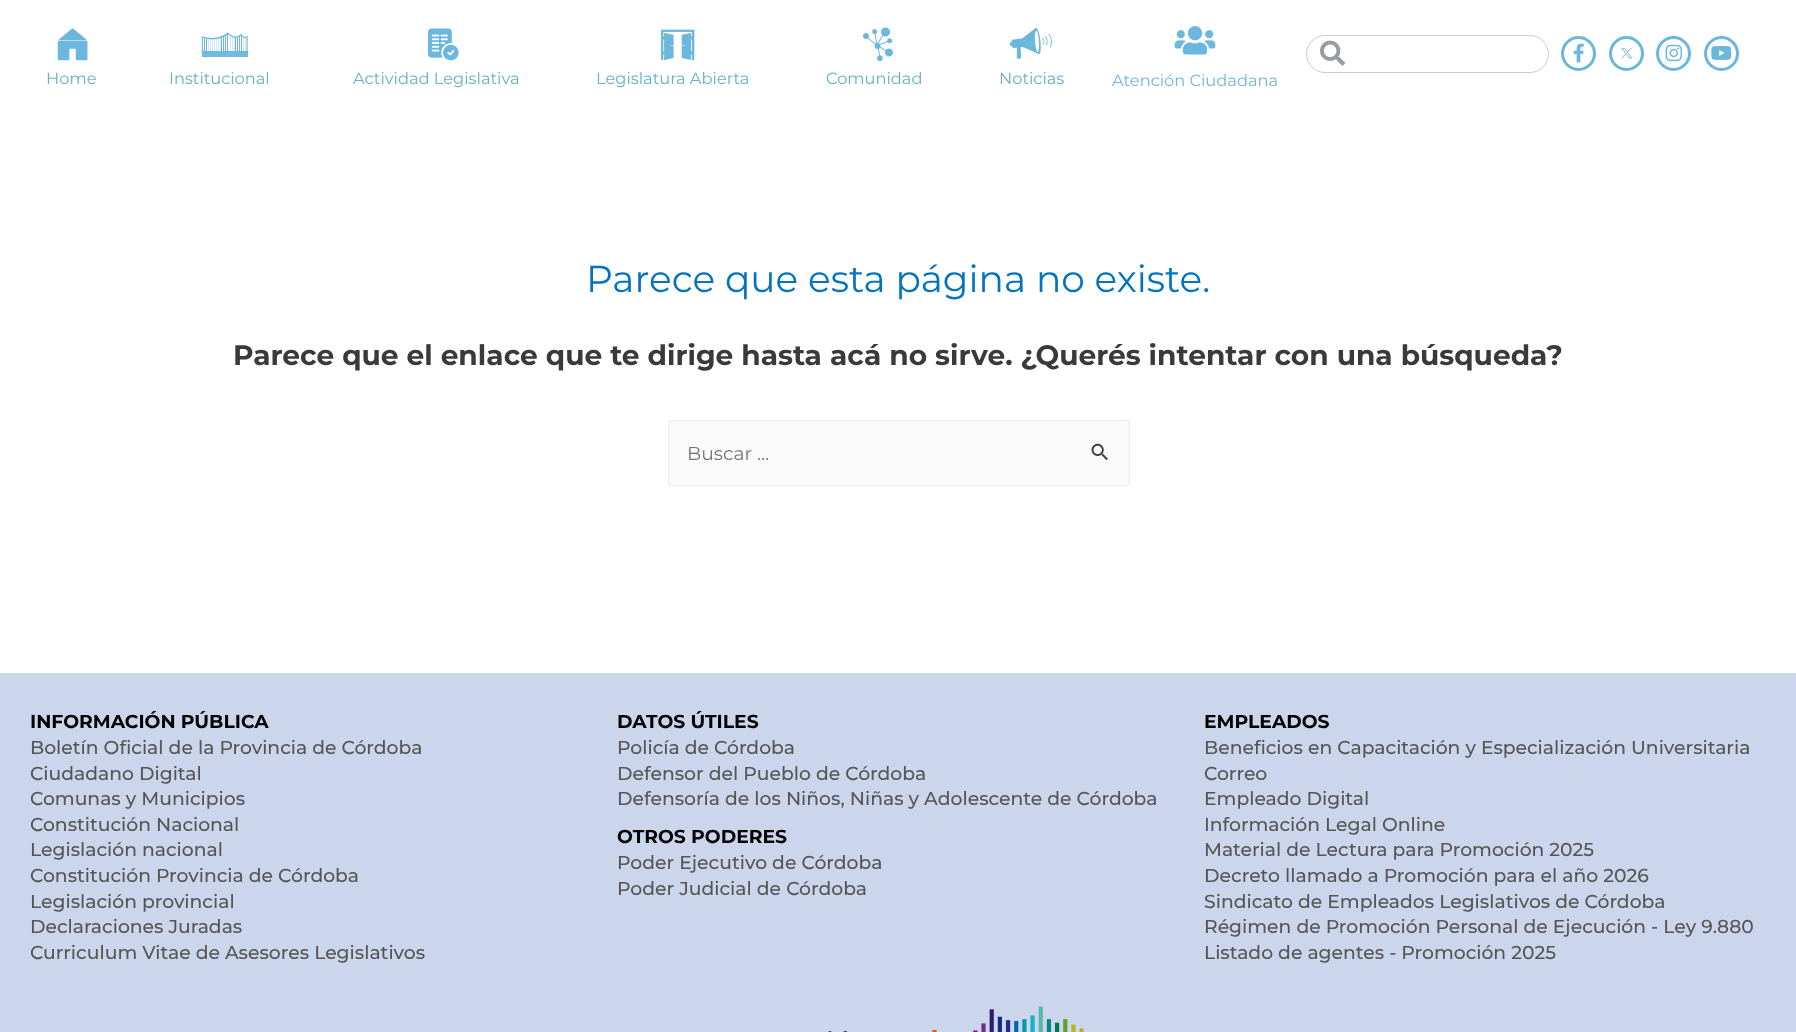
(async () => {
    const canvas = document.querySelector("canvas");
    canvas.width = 1796;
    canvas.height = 1032;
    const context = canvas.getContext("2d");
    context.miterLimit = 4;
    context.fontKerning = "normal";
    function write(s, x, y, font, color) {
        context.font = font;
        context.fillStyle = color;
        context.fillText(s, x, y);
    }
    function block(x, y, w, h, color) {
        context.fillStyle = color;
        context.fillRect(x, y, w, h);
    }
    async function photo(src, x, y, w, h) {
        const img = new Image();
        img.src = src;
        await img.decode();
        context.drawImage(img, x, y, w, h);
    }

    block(0, 0, 1796, 1032, "rgb(255, 255, 255)");
    context.beginPath();
    context.roundRect(1306.5, 35.5, 242, 37, 18.5);
    context.strokeStyle = "rgb(203, 203, 203)";
    context.stroke();
    await photo("media/1.png", 1320, 40, 25, 26);
    context.beginPath();
    context.arc(1578.5, 53.5, 16, 0, Math.PI * 2);
    context.strokeStyle = "rgb(107, 183, 221)";
    context.lineWidth = 3;
    context.stroke();
    await photo("media/2.png", 1573, 43, 11, 20);
    context.beginPath();
    context.arc(1626.5, 53.5, 16, 0, Math.PI * 2);
    context.stroke();
    await photo("media/3.png", 1621, 47, 12, 12);
    context.beginPath();
    context.arc(1673.5, 53.5, 16, 0, Math.PI * 2);
    context.stroke();
    await photo("media/4.png", 1665, 44, 17, 18);
    context.beginPath();
    context.arc(1721.5, 53.5, 16, 0, Math.PI * 2);
    context.stroke();
    await photo("media/5.png", 1711, 45, 21, 15);
    await photo("media/6.png", 57, 28, 31, 33);
    write("Home", 46, 84, "16.25px Montserrat", "rgb(101, 176, 202)");
    await photo("media/7.png", 201, 32, 47, 25);
    write("Institucional", 169, 84, "16.25px Montserrat", "rgb(101, 176, 202)");
    await photo("media/8.png", 428, 28, 31, 33);
    write("Actividad Legislativa", 353, 84, "16.25px Montserrat", "rgb(101, 176, 202)");
    await photo("media/9.png", 661, 29, 34, 32);
    write("Legislatura Abierta", 596, 84, "16.25px Montserrat", "rgb(101, 176, 202)");
    await photo("media/10.png", 863, 27, 30, 35);
    write("Comunidad", 826, 84, "16.25px Montserrat", "rgb(101, 176, 202)");
    await photo("media/11.png", 1009, 27, 43, 32);
    write("Noticias", 999, 84, "16.25px Montserrat", "rgb(101, 176, 202)");
    await photo("media/12.png", 1174, 26, 42, 29);
    write("Atención Ciudadana", 1112, 86, "16.25px Montserrat", "rgb(107, 183, 221)");
    write("Parece que esta página no existe.", 586, 292, "37.5px Montserrat", "rgb(2, 116, 190)");
    write("Parece que el enlace que te dirige hasta acá no sirve. ¿Querés intentar con una búsqueda?", 233, 365, "bold 28.1px Montserrat", "rgb(58, 58, 58)");
    context.fillStyle = "rgb(250, 250, 250)";
    context.beginPath();
    context.roundRect(668.5, 420.5, 461, 65, 2);
    context.fill();
    context.strokeStyle = "rgb(234, 234, 234)";
    context.lineWidth = 1;
    context.stroke();
    write("Buscar …", 687, 460, "18.75px Montserrat", "rgb(117, 117, 117)");
    await photo("media/13.png", 1091, 443, 17, 18);
    block(0, 673, 1796, 359, "rgb(203, 213, 236)");
    write("INFORMACIÓN PÚBLICA", 30, 728, "bold 18.75px Montserrat", "rgb(0, 0, 0)");
    write("Boletín Oficial de la Provincia de Córdoba", 30, 754, "500 18.75px Montserrat", "rgb(85, 85, 85)");
    write("Ciudadano Digital", 30, 780, "500 18.75px Montserrat", "rgb(85, 85, 85)");
    write("Comunas y Municipios", 30, 805, "500 18.75px Montserrat", "rgb(85, 85, 85)");
    write("Constitución Nacional", 30, 831, "500 18.75px Montserrat", "rgb(85, 85, 85)");
    write("Legislación nacional", 30, 856, "500 18.75px Montserrat", "rgb(85, 85, 85)");
    write("Constitución Provincia de Córdoba", 30, 882, "500 18.75px Montserrat", "rgb(85, 85, 85)");
    write("Legislación provincial", 30, 908, "500 18.75px Montserrat", "rgb(85, 85, 85)");
    write("Declaraciones Juradas", 30, 933, "500 18.75px Montserrat", "rgb(85, 85, 85)");
    write("Curriculum Vitae de Asesores Legislativos", 30, 959, "500 18.75px Montserrat", "rgb(85, 85, 85)");
    write("DATOS ÚTILES", 617, 728, "bold 18.75px Montserrat", "rgb(0, 0, 0)");
    write("Policía de Córdoba", 617, 754, "500 18.75px Montserrat", "rgb(85, 85, 85)");
    write("Defensor del Pueblo de Córdoba", 617, 780, "500 18.75px Montserrat", "rgb(85, 85, 85)");
    write("Defensoría de los Niños, Niñas y Adolescente de Córdoba", 617, 805, "500 18.75px Montserrat", "rgb(85, 85, 85)");
    write("OTROS PODERES", 617, 843, "bold 18.75px Montserrat", "rgb(0, 0, 0)");
    write("Poder Ejecutivo de Córdoba", 617, 869, "500 18.75px Montserrat", "rgb(85, 85, 85)");
    write("Poder Judicial de Córdoba", 617, 895, "500 18.75px Montserrat", "rgb(85, 85, 85)");
    write("EMPLEADOS", 1204, 728, "bold 18.75px Montserrat", "rgb(0, 0, 0)");
    write("Beneficios en Capacitación y Especialización Universitaria", 1204, 754, "500 18.75px Montserrat", "rgb(85, 85, 85)");
    write("Correo", 1204, 780, "500 18.75px Montserrat", "rgb(85, 85, 85)");
    write("Empleado Digital", 1204, 805, "500 18.75px Montserrat", "rgb(85, 85, 85)");
    write("Información Legal Online", 1204, 831, "500 18.75px Montserrat", "rgb(85, 85, 85)");
    write("Material de Lectura para Promoción 2025", 1204, 856, "500 18.75px Montserrat", "rgb(85, 85, 85)");
    write("Decreto llamado a Promoción para el año 2026", 1204, 882, "500 18.75px Montserrat", "rgb(85, 85, 85)");
    write("Sindicato de Empleados Legislativos de Córdoba", 1204, 908, "500 18.75px Montserrat", "rgb(85, 85, 85)");
    write("Régimen de Promoción Personal de Ejecución - Ley 9.880", 1204, 933, "500 18.75px Montserrat", "rgb(85, 85, 85)");
    write("Listado de agentes - Promoción 2025", 1204, 959, "500 18.75px Montserrat", "rgb(85, 85, 85)");
    await photo("media/14.png", 828, 1006, 256, 26);
})();
